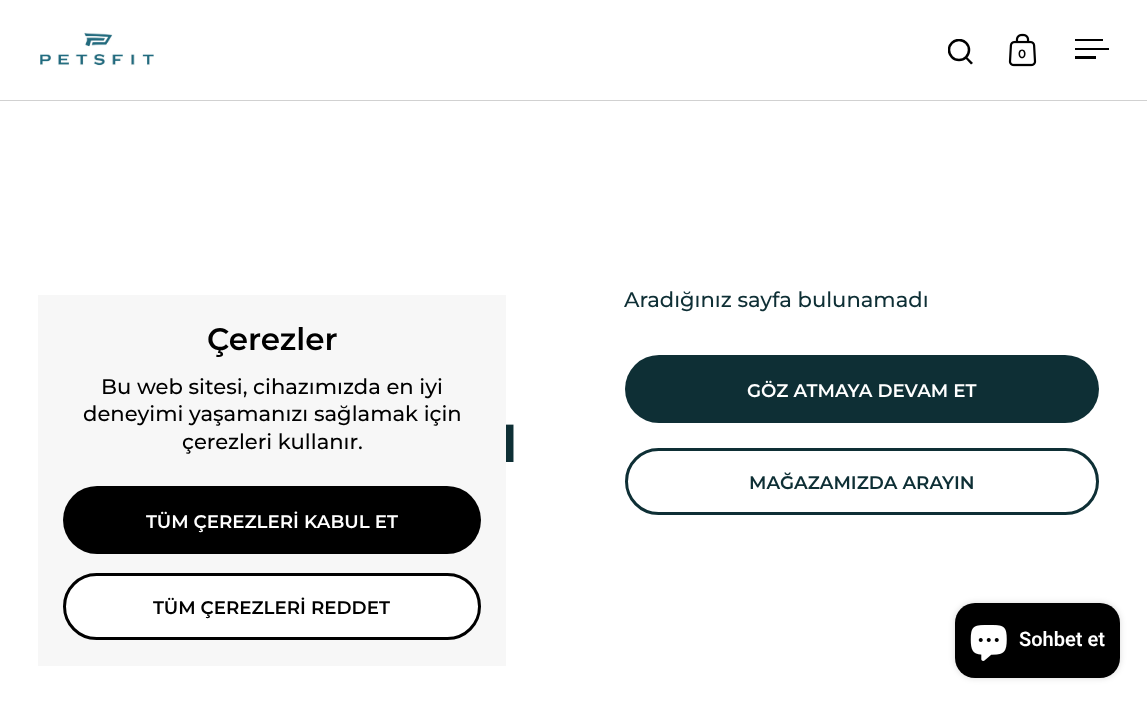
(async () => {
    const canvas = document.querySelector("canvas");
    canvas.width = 1147;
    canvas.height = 703;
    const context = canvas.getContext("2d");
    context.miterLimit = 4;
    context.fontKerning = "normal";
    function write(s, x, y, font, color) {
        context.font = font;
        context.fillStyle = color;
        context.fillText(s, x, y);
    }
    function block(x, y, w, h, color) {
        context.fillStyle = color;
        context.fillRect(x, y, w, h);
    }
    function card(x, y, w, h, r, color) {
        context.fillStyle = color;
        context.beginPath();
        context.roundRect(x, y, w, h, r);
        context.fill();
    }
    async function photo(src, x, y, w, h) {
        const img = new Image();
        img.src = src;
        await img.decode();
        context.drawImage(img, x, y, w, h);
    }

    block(0, 0, 1147, 703, "rgb(255, 255, 255)");
    block(0, 100, 1147, 1, "rgb(209, 209, 209)");
    await photo("media/1.png", 40, 32, 114, 34);
    context.save();
    context.beginPath();
    context.rect(948, 39, 26, 26);
    context.clip();
    context.beginPath();
    context.arc(959, 50, 10, 0, Math.PI * 2);
    context.strokeStyle = "rgb(0, 0, 0)";
    context.lineWidth = 2.5;
    context.stroke();
    context.restore();
    context.fillStyle = "rgb(0, 0, 0)";
    context.beginPath();
    context.moveTo(965.5, 58.5);
    context.lineTo(967, 57);
    context.lineTo(973, 63);
    context.lineTo(971, 64.5);
    context.closePath();
    context.fill();
    await photo("media/2.png", 1008, 33, 29, 34);
    write("0", 1018, 58, "600 12px Montserrat", "rgb(0, 0, 0)");
    block(1075, 39, 28, 2, "rgb(0, 0, 0)");
    block(1075, 48, 34, 2, "rgb(0, 0, 0)");
    block(1075, 56, 21, 3, "rgb(0, 0, 0)");
    write("ı", 499, 462, "600 70px Montserrat", "rgb(14, 47, 53)");
    block(38, 295, 468, 371, "rgb(247, 247, 247)");
    write("Çerezler", 207, 350, "600 31px Montserrat", "rgb(0, 0, 0)");
    write("Bu web sitesi, cihazımızda en iyi", 101, 394, "500 21.1px Montserrat", "rgb(0, 0, 0)");
    write("deneyimi yaşamanızı sağlamak için", 83, 421, "500 21.1px Montserrat", "rgb(0, 0, 0)");
    write("çerezleri kullanır.", 182, 449, "500 21.1px Montserrat", "rgb(0, 0, 0)");
    card(63, 486, 418, 68, 34, "rgb(0, 0, 0)");
    write("TÜM ÇEREZLERİ KABUL ET", 146, 528, "600 18.25px Montserrat", "rgb(255, 255, 255)");
    context.beginPath();
    context.roundRect(64.5, 574.5, 415, 64, 32);
    context.fill();
    context.strokeStyle = "rgb(0, 0, 0)";
    context.lineWidth = 3;
    context.stroke();
    write("TÜM ÇEREZLERİ REDDET", 153, 614, "600 18.25px Montserrat", "rgb(0, 0, 0)");
    write("Aradığınız sayfa bulunamadı", 624, 307, "500 21.1px Montserrat", "rgb(14, 47, 53)");
    card(625, 355, 474, 68, 34, "rgb(14, 47, 53)");
    write("GÖZ ATMAYA DEVAM ET", 747, 397, "600 18.25px Montserrat", "rgb(255, 255, 255)");
    context.beginPath();
    context.roundRect(626.5, 449.5, 471, 64, 32);
    context.strokeStyle = "rgb(14, 47, 53)";
    context.stroke();
    write("MAĞAZAMIZDA ARAYIN", 749, 489, "600 18.25px Montserrat", "rgb(14, 47, 53)");
    context.fillStyle = "rgba(0, 0, 0, 0.15)";
    context.filter = "blur(3px)";
    context.beginPath();
    context.roundRect(955, 603, 165, 75, 20);
    context.fill();
    context.filter = "none";
    card(955, 603, 165, 75, 20, "rgb(0, 0, 0)");
    await photo("media/3.png", 970, 625, 37, 36);
    write("Sohbet et", 1019, 646, "600 20px Roboto", "rgb(255, 255, 255)");
})();
